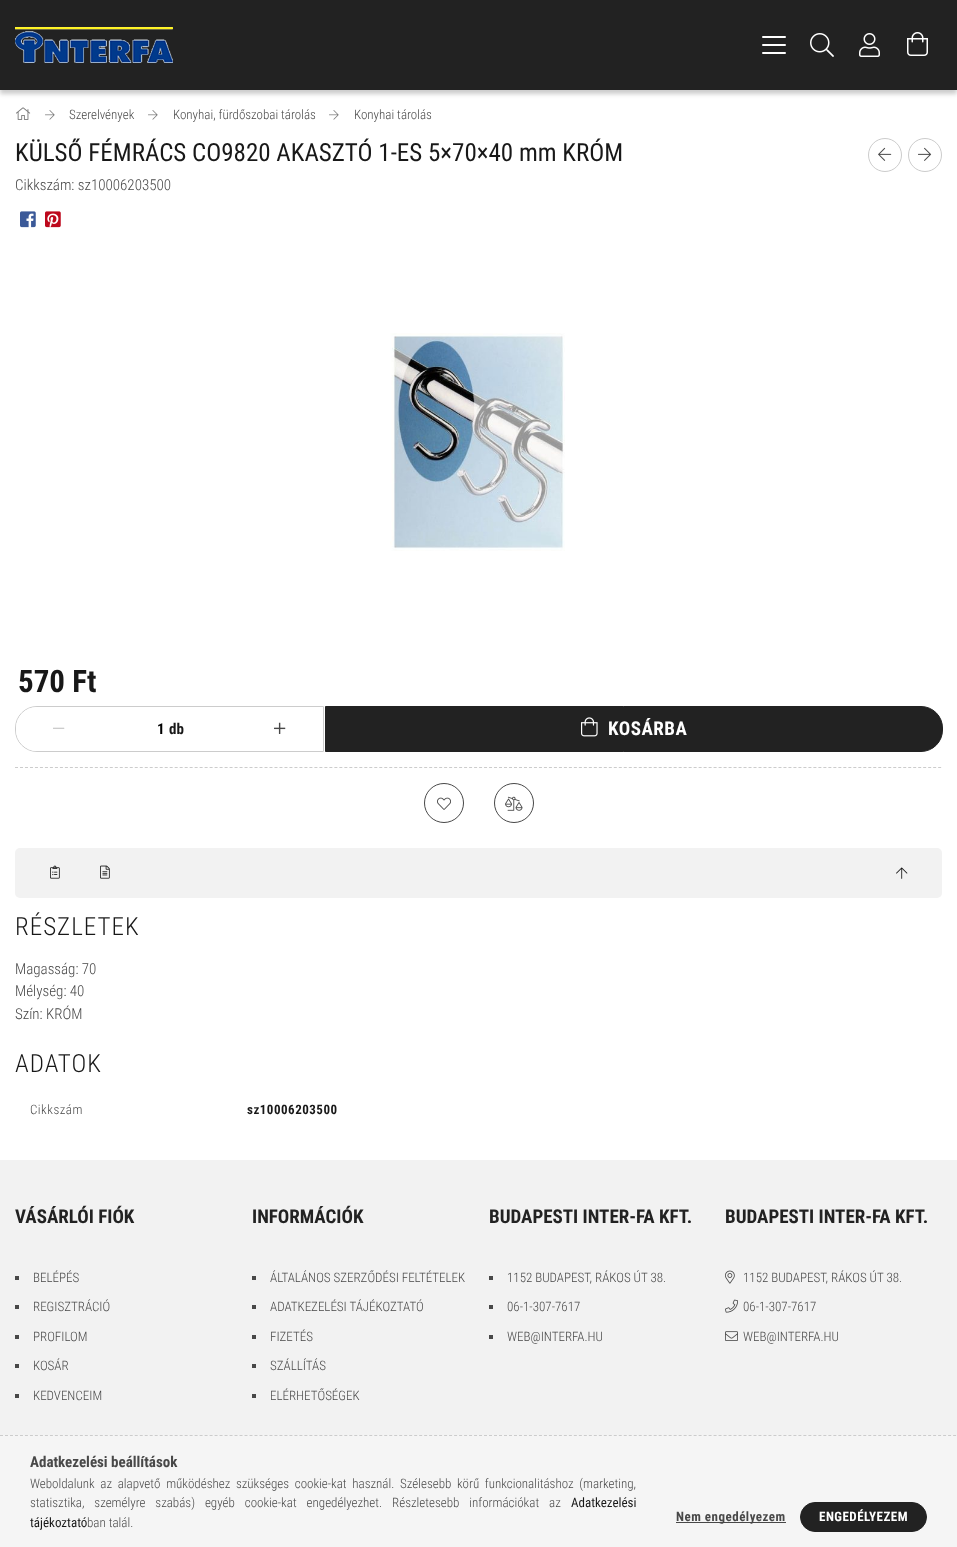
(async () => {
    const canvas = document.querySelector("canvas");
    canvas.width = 957;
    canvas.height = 1547;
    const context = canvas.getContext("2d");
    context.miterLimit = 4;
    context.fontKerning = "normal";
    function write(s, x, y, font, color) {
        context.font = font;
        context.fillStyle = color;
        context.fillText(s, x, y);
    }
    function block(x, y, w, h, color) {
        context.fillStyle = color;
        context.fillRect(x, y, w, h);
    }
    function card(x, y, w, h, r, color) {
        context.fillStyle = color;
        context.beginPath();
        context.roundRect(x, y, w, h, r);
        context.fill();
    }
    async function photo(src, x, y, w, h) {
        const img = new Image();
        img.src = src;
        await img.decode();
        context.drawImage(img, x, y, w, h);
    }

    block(0, 0, 957, 1547, "rgb(255, 255, 255)");
    context.fillStyle = "rgba(0, 0, 0, 0.2)";
    context.filter = "blur(2px)";
    context.beginPath();
    context.rect(0, 4, 957, 90);
    context.fill();
    context.filter = "none";
    block(0, 0, 957, 90, "rgb(34, 34, 34)");
    await photo("media/1.png", 15, 27, 158, 36);
    card(762, 36, 24, 2, 1, "rgb(255, 255, 255)");
    card(762, 44, 24, 2, 1, "rgb(255, 255, 255)");
    card(762, 52, 24, 2, 1, "rgb(255, 255, 255)");
    await photo("media/2.png", 810, 33, 24, 24);
    await photo("media/3.png", 859, 33, 21, 24);
    await photo("media/4.png", 907, 32, 21, 24);
    await photo("media/5.png", 16, 107, 15, 13);
    await photo("media/6.png", 45, 110, 10, 10);
    write("Szerelvények", 69, 119, "300 13px Roboto Condensed", "rgb(72, 72, 72)");
    await photo("media/6.png", 148, 110, 10, 10);
    write("Konyhai, fürdőszobai tárolás", 173, 119, "300 13px Roboto Condensed", "rgb(72, 72, 72)");
    await photo("media/6.png", 329, 110, 10, 10);
    write("Konyhai tárolás", 354, 119, "300 13px Roboto Condensed", "rgb(72, 72, 72)");
    write("KÜLSŐ FÉMRÁCS CO9820 AKASZTÓ 1-ES 5×70×40 mm KRÓM", 15, 161, "25px Roboto Condensed", "rgb(24, 24, 24)");
    context.beginPath();
    context.arc(885, 155, 16.5, 0, Math.PI * 2);
    context.strokeStyle = "rgb(204, 204, 204)";
    context.stroke();
    await photo("media/7.png", 878, 147, 14, 14);
    context.beginPath();
    context.arc(925, 155, 16.5, 0, Math.PI * 2);
    context.stroke();
    await photo("media/8.png", 918, 147, 14, 14);
    write("Cikkszám: sz10006203500", 15, 190, "300 15px Roboto Condensed", "rgb(72, 72, 72)");
    await photo("media/9.png", 20, 211, 16, 17);
    await photo("media/10.png", 45, 211, 16, 17);
    await photo("media/11.png", 390, 333, 175, 218);
    write("570 Ft", 18, 692, "bold 31px Roboto Condensed", "rgb(24, 24, 24)");
    context.beginPath();
    context.roundRect(15.5, 706.5, 308, 45, [21.5, 0, 0, 21.5]);
    context.stroke();
    context.fillStyle = "rgb(255, 255, 255)";
    context.beginPath();
    context.roundRect(16, 707, 86, 44, [21, 0, 0, 21]);
    context.fill();
    await photo("media/12.png", 53, 727, 12, 2);
    write("1", 157, 734, "bold 15px Roboto Condensed", "rgb(0, 0, 0)");
    write("db", 169, 734, "bold 15px Roboto Condensed", "rgb(24, 24, 24)");
    await photo("media/13.png", 274, 722, 12, 12);
    context.fillStyle = "rgb(34, 34, 34)";
    context.beginPath();
    context.roundRect(325.5, 706.5, 617, 45, [0, 21.5, 21.5, 0]);
    context.fill();
    context.strokeStyle = "rgb(34, 34, 34)";
    context.stroke();
    await photo("media/14.png", 581, 717, 17, 20);
    context.letterSpacing = "0.5px";
    write("KOSÁRBA", 608, 735, "bold 19px Roboto Condensed", "rgb(255, 255, 255)");
    context.beginPath();
    context.moveTo(15, 767.5);
    context.lineTo(942, 767.5);
    context.strokeStyle = "rgb(204, 204, 204)";
    context.setLineDash([3, 1.99]);
    context.stroke();
    context.beginPath();
    context.arc(444, 803, 19.5, 0, Math.PI * 2);
    context.strokeStyle = "rgb(72, 72, 72)";
    context.setLineDash([]);
    context.stroke();
    await photo("media/15.png", 437, 797, 14, 13);
    context.beginPath();
    context.arc(514, 803, 19.5, 0, Math.PI * 2);
    context.stroke();
    await photo("media/16.png", 505, 796, 18, 15);
    card(15, 848, 927, 50, 5, "rgb(242, 242, 242)");
    await photo("media/17.png", 50, 865, 10, 14);
    await photo("media/18.png", 100, 865, 10, 14);
    await photo("media/19.png", 896, 867, 12, 12);
    context.letterSpacing = "1px";
    write("RÉSZLETEK", 15, 935, "300 25px Roboto Condensed", "rgb(24, 24, 24)");
    context.letterSpacing = "0px";
    write("Magasság: 70", 15, 974, "300 15px Roboto Condensed", "rgb(72, 72, 72)");
    write("Mélység: 40", 15, 996, "300 15px Roboto Condensed", "rgb(72, 72, 72)");
    write("Szín: KRÓM", 15, 1019, "300 15px Roboto Condensed", "rgb(72, 72, 72)");
    context.letterSpacing = "1px";
    write("ADATOK", 15, 1072, "300 25px Roboto Condensed", "rgb(24, 24, 24)");
    context.letterSpacing = "0.5px";
    write("Cikkszám", 30, 1114, "300 13px Roboto Condensed", "rgb(72, 72, 72)");
    write("sz10006203500", 247, 1114, "bold 13px Roboto Condensed", "rgb(24, 24, 24)");
    block(0, 1160, 957, 275, "rgb(242, 242, 242)");
    context.letterSpacing = "0px";
    write("VÁSÁRLÓI FIÓK", 15, 1223, "bold 19px Roboto Condensed", "rgb(34, 34, 34)");
    block(15, 1276, 4, 4, "rgb(72, 72, 72)");
    write("BELÉPÉS", 33, 1282, "300 13px Roboto Condensed", "rgb(72, 72, 72)");
    block(15, 1305, 4, 4, "rgb(72, 72, 72)");
    write("REGISZTRÁCIÓ", 33, 1311, "300 13px Roboto Condensed", "rgb(72, 72, 72)");
    block(15, 1335, 4, 4, "rgb(72, 72, 72)");
    write("PROFILOM", 33, 1341, "300 13px Roboto Condensed", "rgb(72, 72, 72)");
    block(15, 1364, 4, 4, "rgb(72, 72, 72)");
    write("KOSÁR", 33, 1370, "300 13px Roboto Condensed", "rgb(72, 72, 72)");
    block(15, 1394, 4, 4, "rgb(72, 72, 72)");
    write("KEDVENCEIM", 33, 1400, "300 13px Roboto Condensed", "rgb(72, 72, 72)");
    write("INFORMÁCIÓK", 252, 1223, "bold 19px Roboto Condensed", "rgb(34, 34, 34)");
    block(252, 1276, 4, 4, "rgb(72, 72, 72)");
    write("ÁLTALÁNOS SZERZŐDÉSI FELTÉTELEK", 270, 1282, "300 13px Roboto Condensed", "rgb(72, 72, 72)");
    block(252, 1305, 4, 4, "rgb(72, 72, 72)");
    write("ADATKEZELÉSI TÁJÉKOZTATÓ", 270, 1311, "300 13px Roboto Condensed", "rgb(72, 72, 72)");
    block(252, 1335, 4, 4, "rgb(72, 72, 72)");
    write("FIZETÉS", 270, 1341, "300 13px Roboto Condensed", "rgb(72, 72, 72)");
    block(252, 1364, 4, 4, "rgb(72, 72, 72)");
    write("SZÁLLÍTÁS", 270, 1370, "300 13px Roboto Condensed", "rgb(72, 72, 72)");
    block(252, 1394, 4, 4, "rgb(72, 72, 72)");
    write("ELÉRHETŐSÉGEK", 270, 1400, "300 13px Roboto Condensed", "rgb(72, 72, 72)");
    write("BUDAPESTI INTER-FA KFT.", 489, 1223, "bold 19px Roboto Condensed", "rgb(34, 34, 34)");
    block(489, 1276, 4, 4, "rgb(72, 72, 72)");
    write("1152 BUDAPEST, RÁKOS ÚT 38.", 507, 1282, "300 13px Roboto Condensed", "rgb(72, 72, 72)");
    block(489, 1305, 4, 4, "rgb(72, 72, 72)");
    write("06-1-307-7617", 507, 1311, "300 13px Roboto Condensed", "rgb(72, 72, 72)");
    block(489, 1335, 4, 4, "rgb(72, 72, 72)");
    write("WEB@INTERFA.HU", 507, 1341, "300 13px Roboto Condensed", "rgb(72, 72, 72)");
    write("BUDAPESTI INTER-FA KFT.", 725, 1223, "bold 19px Roboto Condensed", "rgb(34, 34, 34)");
    await photo("media/20.png", 725, 1270, 10, 14);
    write("1152 BUDAPEST, RÁKOS ÚT 38.", 743, 1282, "300 13px Roboto Condensed", "rgb(72, 72, 72)");
    await photo("media/21.png", 725, 1299, 13, 14);
    write("06-1-307-7617", 743, 1311, "300 13px Roboto Condensed", "rgb(72, 72, 72)");
    await photo("media/22.png", 725, 1331, 13, 10);
    write("WEB@INTERFA.HU", 743, 1341, "300 13px Roboto Condensed", "rgb(72, 72, 72)");
    block(0, 1435, 957, 112, "rgb(245, 245, 245)");
    context.beginPath();
    context.moveTo(0, 1435.5);
    context.lineTo(957, 1435.5);
    context.strokeStyle = "rgb(204, 204, 204)";
    context.setLineDash([3, 1.99]);
    context.stroke();
    write("Adatkezelési beállítások", 30, 1467, "bold 15px Roboto Condensed", "rgb(72, 72, 72)");
    context.wordSpacing = "2.75px";
    write("Weboldalunk az alapvető működéshez szükséges cookie-kat használ. Szélesebb körű funkcionalitáshoz (marketing,", 30, 1488, "300 13px Roboto Condensed", "rgb(72, 72, 72)");
    context.wordSpacing = "7px";
    write("statisztika, személyre szabás) egyéb cookie-kat engedélyezhet. Részletesebb információkat az", 30, 1507, "300 13px Roboto Condensed", "rgb(72, 72, 72)");
    context.wordSpacing = "0px";
    write("Adatkezelési", 571, 1507, "13px Roboto Condensed", "rgb(24, 24, 24)");
    write("tájékoztató", 30, 1527, "13px Roboto Condensed", "rgb(24, 24, 24)");
    write("ban talál.", 87, 1527, "300 13px Roboto Condensed", "rgb(72, 72, 72)");
    block(676, 1522, 110, 1, "rgb(72, 72, 72)");
    context.letterSpacing = "0.5px";
    write("Nem engedélyezem", 676, 1521, "bold 13px Roboto Condensed", "rgb(72, 72, 72)");
    context.fillStyle = "rgb(34, 34, 34)";
    context.beginPath();
    context.roundRect(800.5, 1502.5, 126, 29, 14.5);
    context.fill();
    context.strokeStyle = "rgb(34, 34, 34)";
    context.setLineDash([]);
    context.stroke();
    write("ENGEDÉLYEZEM", 819, 1521, "bold 13px Roboto Condensed", "rgb(255, 255, 255)");
})();
